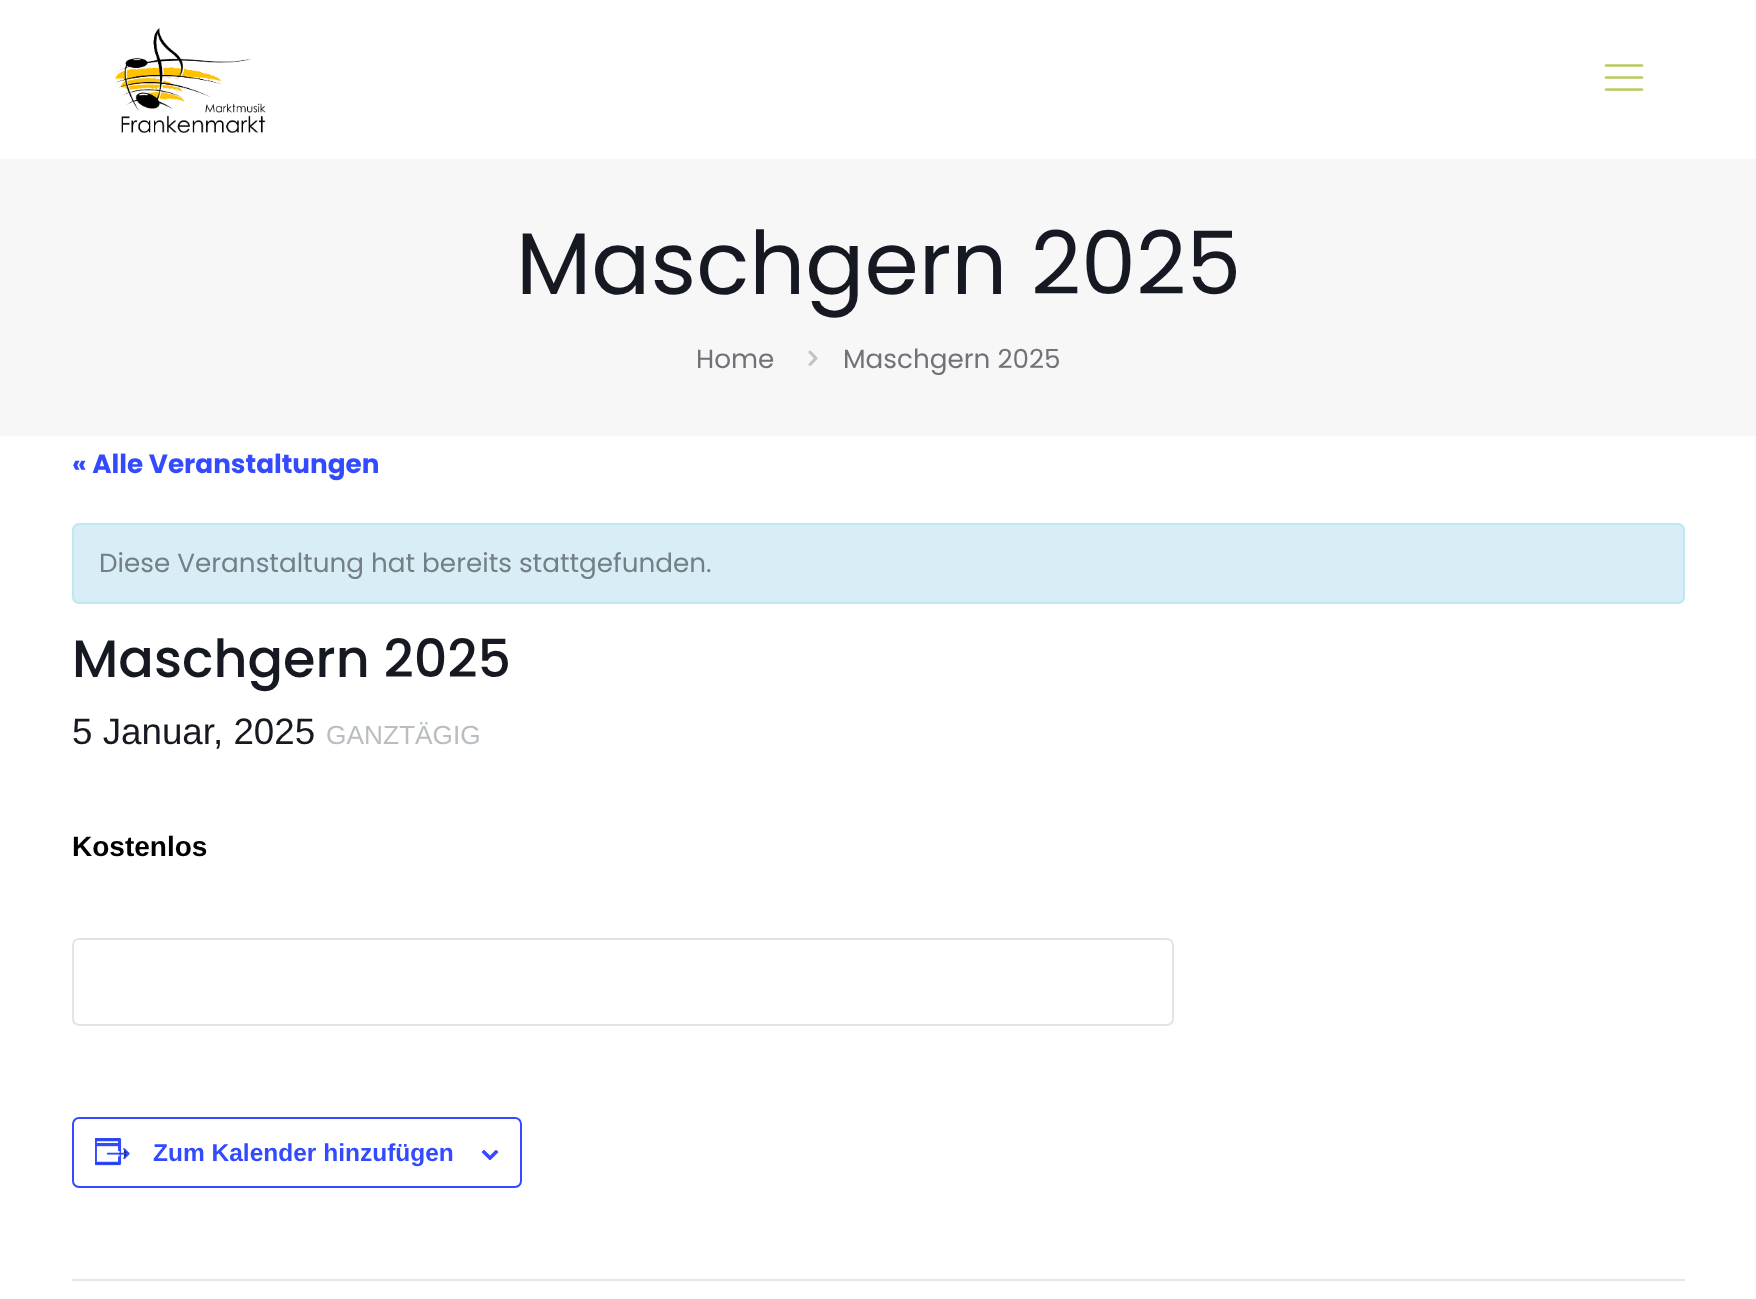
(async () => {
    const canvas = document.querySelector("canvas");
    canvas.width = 1756;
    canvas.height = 1299;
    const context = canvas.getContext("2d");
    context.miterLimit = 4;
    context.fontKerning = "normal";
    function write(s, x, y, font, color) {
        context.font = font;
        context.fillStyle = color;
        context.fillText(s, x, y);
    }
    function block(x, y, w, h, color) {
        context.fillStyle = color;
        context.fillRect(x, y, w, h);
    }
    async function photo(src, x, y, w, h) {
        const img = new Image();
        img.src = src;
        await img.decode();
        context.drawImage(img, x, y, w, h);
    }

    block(0, 0, 1756, 1299, "rgb(255, 255, 255)");
    await photo("media/1.png", 114, 28, 152, 105);
    await photo("media/2.png", 1604, 64, 40, 27);
    block(0, 159, 1756, 277, "rgb(247, 247, 247)");
    write("Maschgern 2025", 516, 294, "87.5px Poppins", "rgb(22, 25, 34)");
    write("Home", 696, 368, "26.25px Poppins", "rgb(112, 114, 119)");
    await photo("media/3.png", 808, 350, 10, 16);
    write("Maschgern 2025", 843, 368, "26.25px Poppins", "rgb(112, 114, 119)");
    write("« Alle Veranstaltungen", 72, 473, "bold 26.25px Poppins", "rgb(51, 74, 255)");
    context.fillStyle = "rgb(217, 237, 247)";
    context.beginPath();
    context.roundRect(73, 524, 1611, 79, 6);
    context.fill();
    context.strokeStyle = "rgb(188, 232, 241)";
    context.lineWidth = 2;
    context.stroke();
    write("Diese Veranstaltung hat bereits stattgefunden.", 99, 572, "26.25px Poppins", "rgb(115, 126, 134)");
    write("Maschgern 2025", 72, 677, "500 52.5px Poppins", "rgb(22, 25, 34)");
    write("5 Januar, 2025", 72, 744, "36.75px Liberation Sans", "rgb(22, 25, 34)");
    write("GANZTÄGIG", 326, 744, "26.25px Liberation Sans", "rgb(185, 190, 194)");
    write("Kostenlos", 72, 856, "bold 28px Liberation Sans", "rgb(0, 0, 0)");
    context.beginPath();
    context.roundRect(73, 939, 1100, 86, 6);
    context.strokeStyle = "rgb(228, 228, 228)";
    context.stroke();
    context.beginPath();
    context.roundRect(73, 1118, 448, 69, 6);
    context.strokeStyle = "rgb(51, 74, 255)";
    context.stroke();
    await photo("media/4.png", 95, 1138, 35, 28);
    write("Zum Kalender hinzufügen", 153, 1161, "bold 24.5px Liberation Sans", "rgb(51, 74, 255)");
    await photo("media/5.png", 481, 1150, 18, 10);
    block(72, 1279, 1613, 2, "rgb(229, 229, 229)");
})();
